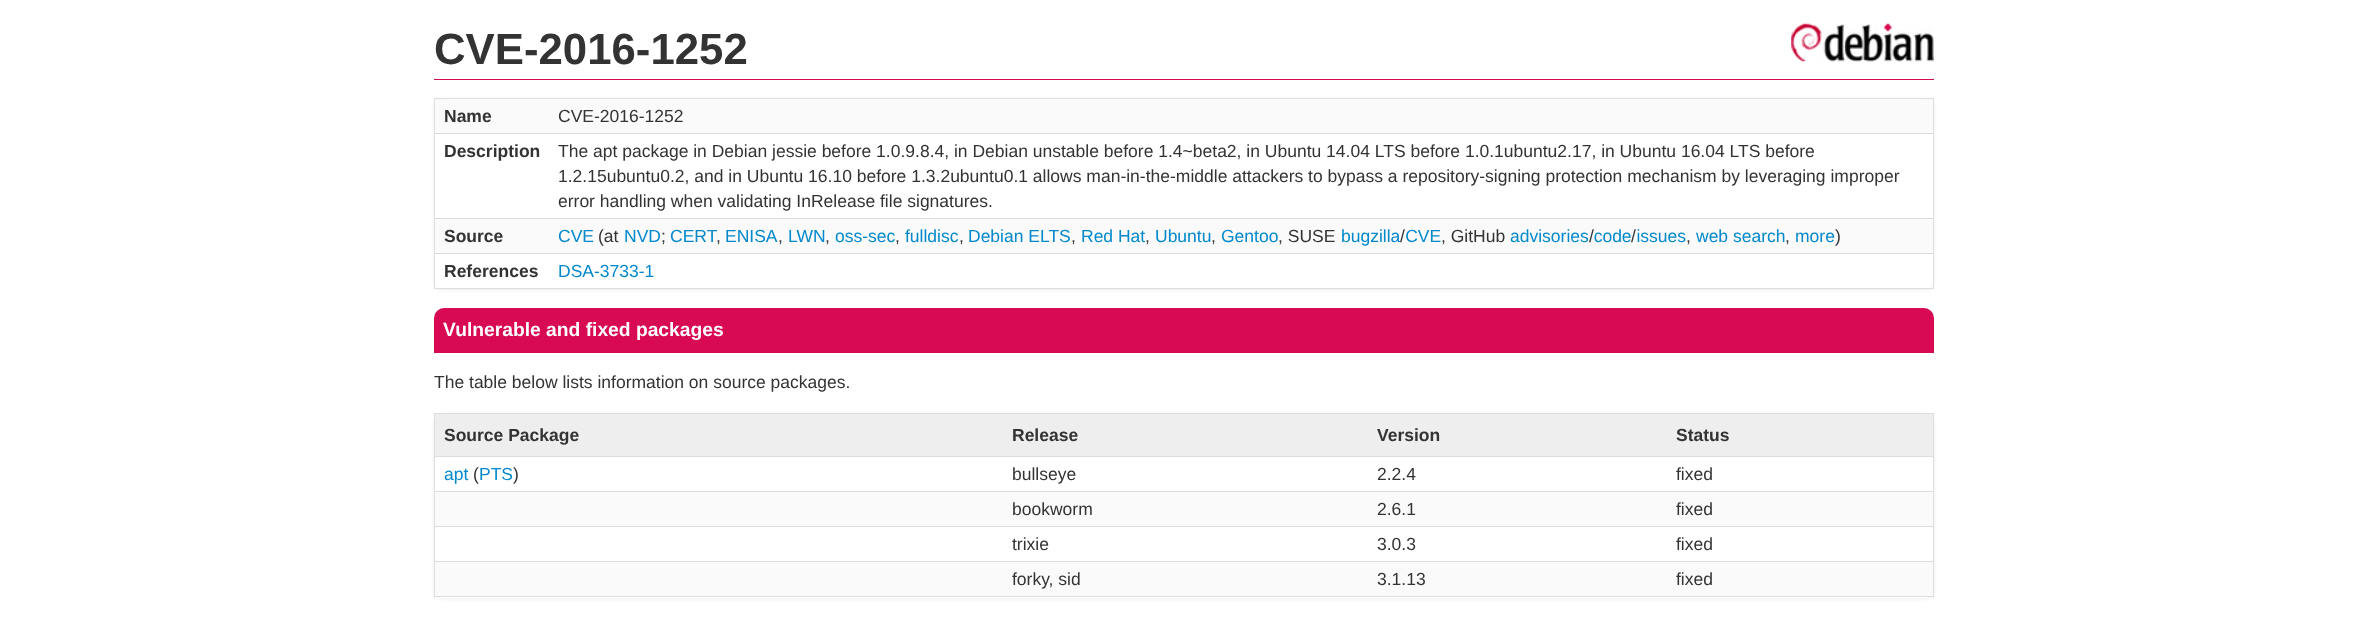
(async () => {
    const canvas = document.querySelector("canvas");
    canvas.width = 2367;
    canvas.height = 622;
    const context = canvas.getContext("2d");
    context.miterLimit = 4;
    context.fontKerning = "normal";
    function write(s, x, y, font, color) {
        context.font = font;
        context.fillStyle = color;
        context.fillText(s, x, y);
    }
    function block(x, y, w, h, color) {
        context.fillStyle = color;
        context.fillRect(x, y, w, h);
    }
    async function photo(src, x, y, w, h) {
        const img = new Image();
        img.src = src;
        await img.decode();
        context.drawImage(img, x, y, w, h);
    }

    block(0, 0, 2367, 622, "rgb(255, 255, 255)");
    await photo("media/1.png", 1791, 23, 143, 39);
    block(434, 79, 1500, 1, "rgb(215, 10, 83)");
    write("CVE-2016-1252", 434, 64, "bold 43.75px Liberation Sans", "rgb(51, 51, 51)");
    context.save();
    context.beginPath();
    context.moveTo(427, 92);
    context.lineTo(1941, 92);
    context.lineTo(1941, 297);
    context.lineTo(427, 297);
    context.closePath();
    context.moveTo(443, 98);
    context.lineTo(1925, 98);
    context.bezierCurveTo(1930, 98, 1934, 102, 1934, 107);
    context.lineTo(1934, 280);
    context.bezierCurveTo(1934, 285, 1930, 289, 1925, 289);
    context.lineTo(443, 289);
    context.bezierCurveTo(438, 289, 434, 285, 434, 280);
    context.lineTo(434, 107);
    context.bezierCurveTo(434, 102, 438, 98, 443, 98);
    context.closePath();
    context.clip("evenodd");
    context.fillStyle = "rgb(238, 238, 238)";
    context.filter = "blur(2px)";
    context.beginPath();
    context.roundRect(434, 99, 1500, 191, 9);
    context.fill();
    context.filter = "none";
    context.restore();
    block(434, 98, 1500, 1, "rgb(221, 221, 221)");
    block(1933, 98, 1, 191, "rgb(221, 221, 221)");
    block(434, 288, 1500, 1, "rgb(221, 221, 221)");
    block(434, 98, 1, 191, "rgb(221, 221, 221)");
    block(435, 99, 1498, 34, "rgb(250, 250, 250)");
    write("Name", 444, 122, "bold 17.5px Liberation Sans", "rgb(51, 51, 51)");
    block(434, 133, 1500, 1, "rgb(221, 221, 221)");
    write("CVE-2016-1252", 558, 122, "17.5px Liberation Sans", "rgb(51, 51, 51)");
    write("Description", 444, 157, "bold 17.5px Liberation Sans", "rgb(51, 51, 51)");
    block(434, 218, 1500, 1, "rgb(221, 221, 221)");
    write("The apt package in Debian jessie before 1.0.9.8.4, in Debian unstable before 1.4~beta2, in Ubuntu 14.04 LTS before 1.0.1ubuntu2.17, in Ubuntu 16.04 LTS before", 558, 157, "17.5px Liberation Sans", "rgb(51, 51, 51)");
    write("1.2.15ubuntu0.2, and in Ubuntu 16.10 before 1.3.2ubuntu0.1 allows man-in-the-middle attackers to bypass a repository-signing protection mechanism by leveraging improper", 558, 182, "17.5px Liberation Sans", "rgb(51, 51, 51)");
    write("error handling when validating InRelease file signatures.", 558, 207, "17.5px Liberation Sans", "rgb(51, 51, 51)");
    block(435, 219, 1498, 34, "rgb(250, 250, 250)");
    write("Source", 444, 242, "bold 17.5px Liberation Sans", "rgb(51, 51, 51)");
    block(434, 253, 1500, 1, "rgb(221, 221, 221)");
    write("CVE", 558, 242, "17.5px Liberation Sans", "rgb(0, 136, 204)");
    write("(at", 598, 242, "17.5px Liberation Sans", "rgb(51, 51, 51)");
    write("NVD", 624, 242, "17.5px Liberation Sans", "rgb(0, 136, 204)");
    write("CERT", 670, 242, "17.5px Liberation Sans", "rgb(0, 136, 204)");
    write("ENISA", 725, 242, "17.5px Liberation Sans", "rgb(0, 136, 204)");
    write("LWN", 788, 242, "17.5px Liberation Sans", "rgb(0, 136, 204)");
    write("fulldisc", 905, 242, "17.5px Liberation Sans", "rgb(0, 136, 204)");
    write("Debian ELTS", 968, 242, "17.5px Liberation Sans", "rgb(0, 136, 204)");
    write("Red Hat", 1081, 242, "17.5px Liberation Sans", "rgb(0, 136, 204)");
    write("Ubuntu", 1155, 242, "17.5px Liberation Sans", "rgb(0, 136, 204)");
    write("Gentoo", 1221, 242, "17.5px Liberation Sans", "rgb(0, 136, 204)");
    write(", SUSE", 1278, 242, "17.5px Liberation Sans", "rgb(51, 51, 51)");
    write("bugzilla CVE", 1341, 242, "17.5px Liberation Sans", "rgb(0, 136, 204)");
    write("/", 1400, 242, "17.5px Liberation Sans", "rgb(51, 51, 51)");
    write(", GitHub", 1441, 242, "17.5px Liberation Sans", "rgb(51, 51, 51)");
    write("advisories code issues", 1510, 242, "17.5px Liberation Sans", "rgb(0, 136, 204)");
    write(";", 661, 242, "17.5px Liberation Sans", "rgb(51, 51, 51)");
    write(",", 716, 242, "17.5px Liberation Sans", "rgb(51, 51, 51)");
    write(",", 778, 242, "17.5px Liberation Sans", "rgb(51, 51, 51)");
    write(",", 825, 242, "17.5px Liberation Sans", "rgb(51, 51, 51)");
    write("oss-sec", 835, 242, "17.5px Liberation Sans", "rgb(0, 136, 204)");
    write(",", 895, 242, "17.5px Liberation Sans", "rgb(51, 51, 51)");
    write(",", 959, 242, "17.5px Liberation Sans", "rgb(51, 51, 51)");
    write(",", 1071, 242, "17.5px Liberation Sans", "rgb(51, 51, 51)");
    write(",", 1145, 242, "17.5px Liberation Sans", "rgb(51, 51, 51)");
    write(",", 1211, 242, "17.5px Liberation Sans", "rgb(51, 51, 51)");
    write("/", 1589, 242, "17.5px Liberation Sans", "rgb(51, 51, 51)");
    write("/", 1631, 242, "17.5px Liberation Sans", "rgb(51, 51, 51)");
    write(",", 1686, 242, "17.5px Liberation Sans", "rgb(51, 51, 51)");
    write("web search", 1696, 242, "17.5px Liberation Sans", "rgb(0, 136, 204)");
    write(",", 1785, 242, "17.5px Liberation Sans", "rgb(51, 51, 51)");
    write("more", 1795, 242, "17.5px Liberation Sans", "rgb(0, 136, 204)");
    write(")", 1835, 242, "17.5px Liberation Sans", "rgb(51, 51, 51)");
    write("References", 444, 277, "bold 17.5px Liberation Sans", "rgb(51, 51, 51)");
    write("DSA-3733-1", 558, 277, "17.5px Liberation Sans", "rgb(0, 136, 204)");
    context.fillStyle = "rgb(215, 10, 83)";
    context.beginPath();
    context.roundRect(434, 308, 1500, 45, [10, 10, 0, 0]);
    context.fill();
    write("Vulnerable and fixed packages", 443, 336, "bold 19.25px Liberation Sans", "rgb(255, 255, 255)");
    write("The table below lists information on source packages.", 434, 388, "17.5px Liberation Sans", "rgb(51, 51, 51)");
    context.save();
    context.beginPath();
    context.moveTo(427, 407);
    context.lineTo(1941, 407);
    context.lineTo(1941, 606);
    context.lineTo(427, 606);
    context.closePath();
    context.moveTo(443, 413);
    context.lineTo(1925, 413);
    context.bezierCurveTo(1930, 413, 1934, 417, 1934, 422);
    context.lineTo(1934, 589);
    context.bezierCurveTo(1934, 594, 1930, 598, 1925, 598);
    context.lineTo(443, 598);
    context.bezierCurveTo(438, 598, 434, 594, 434, 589);
    context.lineTo(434, 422);
    context.bezierCurveTo(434, 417, 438, 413, 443, 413);
    context.closePath();
    context.clip("evenodd");
    context.fillStyle = "rgb(238, 238, 238)";
    context.filter = "blur(2px)";
    context.beginPath();
    context.roundRect(434, 414, 1500, 185, 9);
    context.fill();
    context.filter = "none";
    context.restore();
    block(434, 413, 1500, 1, "rgb(221, 221, 221)");
    block(1933, 413, 1, 185, "rgb(221, 221, 221)");
    block(434, 596, 1500, 1, "rgb(221, 221, 221)");
    block(434, 413, 1, 185, "rgb(221, 221, 221)");
    block(435, 414, 1498, 42, "rgb(238, 238, 238)");
    write("Source Package", 444, 441, "bold 17.5px Liberation Sans", "rgb(51, 51, 51)");
    write("Release", 1012, 441, "bold 17.5px Liberation Sans", "rgb(51, 51, 51)");
    write("Version", 1377, 441, "bold 17.5px Liberation Sans", "rgb(51, 51, 51)");
    block(434, 456, 1500, 1, "rgb(221, 221, 221)");
    write("Status", 1676, 441, "bold 17.5px Liberation Sans", "rgb(51, 51, 51)");
    write("apt", 444, 480, "17.5px Liberation Sans", "rgb(0, 136, 204)");
    write("(", 473, 480, "17.5px Liberation Sans", "rgb(51, 51, 51)");
    write("PTS", 479, 480, "17.5px Liberation Sans", "rgb(0, 136, 204)");
    write(")", 513, 480, "17.5px Liberation Sans", "rgb(51, 51, 51)");
    write("bullseye", 1012, 480, "17.5px Liberation Sans", "rgb(51, 51, 51)");
    write("2.2.4", 1377, 480, "17.5px Liberation Sans", "rgb(51, 51, 51)");
    block(434, 491, 1500, 1, "rgb(221, 221, 221)");
    write("fixed", 1676, 480, "17.5px Liberation Sans", "rgb(51, 51, 51)");
    block(435, 492, 1498, 34, "rgb(250, 250, 250)");
    write("bookworm", 1012, 515, "17.5px Liberation Sans", "rgb(51, 51, 51)");
    write("2.6.1", 1377, 515, "17.5px Liberation Sans", "rgb(51, 51, 51)");
    block(434, 526, 1500, 1, "rgb(221, 221, 221)");
    write("fixed", 1676, 515, "17.5px Liberation Sans", "rgb(51, 51, 51)");
    write("trixie", 1012, 550, "17.5px Liberation Sans", "rgb(51, 51, 51)");
    write("3.0.3", 1377, 550, "17.5px Liberation Sans", "rgb(51, 51, 51)");
    block(434, 561, 1500, 1, "rgb(221, 221, 221)");
    write("fixed", 1676, 550, "17.5px Liberation Sans", "rgb(51, 51, 51)");
    block(435, 562, 1498, 34, "rgb(250, 250, 250)");
    write("forky, sid", 1012, 585, "17.5px Liberation Sans", "rgb(51, 51, 51)");
    write("3.1.13", 1377, 585, "17.5px Liberation Sans", "rgb(51, 51, 51)");
    write("fixed", 1676, 585, "17.5px Liberation Sans", "rgb(51, 51, 51)");
})();
